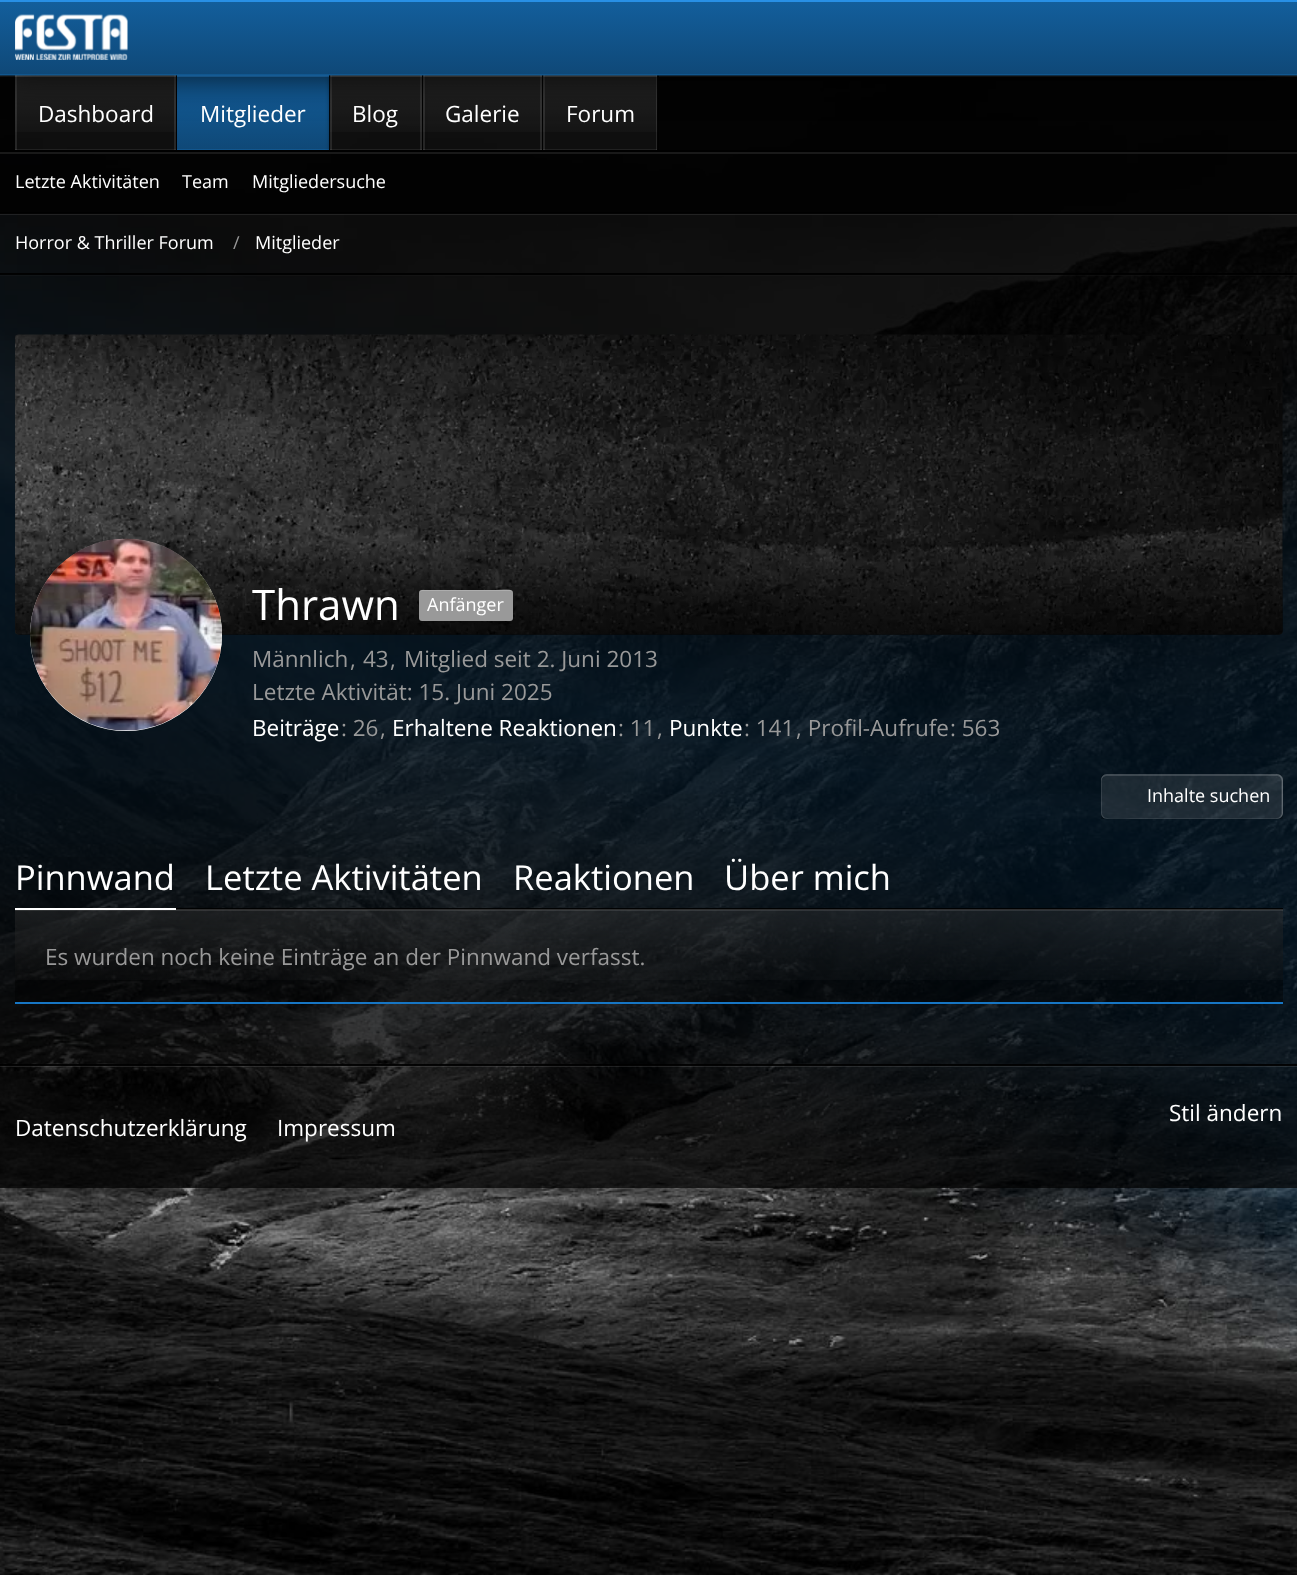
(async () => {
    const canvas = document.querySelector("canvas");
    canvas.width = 1297;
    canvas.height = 1575;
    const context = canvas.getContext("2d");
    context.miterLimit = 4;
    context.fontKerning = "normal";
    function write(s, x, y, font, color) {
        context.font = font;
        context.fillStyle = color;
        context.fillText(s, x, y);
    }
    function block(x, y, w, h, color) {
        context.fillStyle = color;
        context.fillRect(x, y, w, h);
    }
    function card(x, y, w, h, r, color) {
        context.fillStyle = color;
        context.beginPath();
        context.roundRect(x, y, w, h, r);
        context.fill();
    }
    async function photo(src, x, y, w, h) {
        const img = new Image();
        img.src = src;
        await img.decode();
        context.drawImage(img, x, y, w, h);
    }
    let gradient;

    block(0, 0, 1297, 1575, "rgb(255, 255, 255)");
    await photo("media/1.png", 0, 77, 1297, 1498);
    block(0, 77, 1297, 136, "rgba(0, 0, 0, 0.8)");
    block(0, 77, 1297, 73, "rgba(0, 0, 0, 0.7)");
    block(0, 75, 1297, 2, "rgb(25, 25, 25)");
    block(15, 75, 162, 75, "rgba(255, 255, 255, 0.05)");
    gradient = context.createLinearGradient(95, 75, 95, 150);
    gradient.addColorStop(0, "rgba(255, 255, 255, 0.09)");
    gradient.addColorStop(1, "rgba(255, 255, 255, 0)");
    context.fillStyle = gradient;
    context.fillRect(15, 75, 162, 57);
    block(15, 75, 2, 75, "rgba(255, 255, 255, 0.1)");
    block(174, 75, 2, 75, "rgba(255, 255, 255, 0.1)");
    block(15, 75, 161, 2, "rgba(255, 255, 255, 0.15)");
    block(176, 75, 2, 75, "rgba(0, 0, 0, 0.9)");
    block(178, 75, 152, 2, "rgba(0, 0, 0, 0.4)");
    gradient = context.createLinearGradient(253, 75, 253, 150);
    gradient.addColorStop(0, "rgba(23, 118, 196, 0.8)");
    gradient.addColorStop(1, "rgba(23, 118, 196, 0.6)");
    context.fillStyle = gradient;
    context.fillRect(177, 75, 153, 75);
    block(177, 75, 152, 2, "rgb(40, 144, 230)");
    block(329, 75, 2, 75, "rgba(0, 0, 0, 0.9)");
    block(0, 150, 1297, 2, "rgb(0, 0, 0)");
    block(177, 149, 152, 1, "rgb(17, 86, 142)");
    block(0, 154, 1297, 59, "rgba(0, 0, 0, 0.7)");
    block(0, 152, 1297, 2, "rgb(25, 25, 25)");
    context.save();
    context.beginPath();
    context.rect(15, 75, 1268, 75);
    context.clip();
    context.beginPath();
    context.moveTo(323, 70);
    context.lineTo(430, 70);
    context.lineTo(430, 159);
    context.lineTo(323, 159);
    context.closePath();
    context.moveTo(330, 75);
    context.lineTo(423, 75);
    context.lineTo(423, 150);
    context.lineTo(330, 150);
    context.closePath();
    context.clip("evenodd");
    context.fillStyle = "rgba(0, 0, 0, 0.5)";
    context.filter = "blur(2px)";
    context.beginPath();
    context.rect(330, 77, 93, 75);
    context.fill();
    context.filter = "none";
    context.restore();
    block(330, 75, 93, 75, "rgba(255, 255, 255, 0.05)");
    gradient = context.createLinearGradient(376, 75, 376, 150);
    gradient.addColorStop(0, "rgba(255, 255, 255, 0.09)");
    gradient.addColorStop(1, "rgba(255, 255, 255, 0)");
    context.fillStyle = gradient;
    context.fillRect(330, 75, 93, 57);
    block(330, 75, 2, 75, "rgba(255, 255, 255, 0.1)");
    block(420, 75, 2, 75, "rgba(255, 255, 255, 0.1)");
    block(330, 75, 92, 2, "rgba(255, 255, 255, 0.15)");
    block(422, 75, 2, 75, "rgba(0, 0, 0, 0.9)");
    block(423, 75, 120, 75, "rgba(255, 255, 255, 0.05)");
    gradient = context.createLinearGradient(482, 75, 482, 150);
    gradient.addColorStop(0, "rgba(255, 255, 255, 0.09)");
    gradient.addColorStop(1, "rgba(255, 255, 255, 0)");
    context.fillStyle = gradient;
    context.fillRect(423, 75, 120, 57);
    block(423, 75, 2, 75, "rgba(255, 255, 255, 0.1)");
    block(540, 75, 2, 75, "rgba(255, 255, 255, 0.1)");
    block(423, 75, 119, 2, "rgba(255, 255, 255, 0.15)");
    block(542, 75, 2, 75, "rgba(0, 0, 0, 0.9)");
    block(543, 75, 116, 75, "rgba(255, 255, 255, 0.05)");
    gradient = context.createLinearGradient(600, 75, 600, 150);
    gradient.addColorStop(0, "rgba(255, 255, 255, 0.09)");
    gradient.addColorStop(1, "rgba(255, 255, 255, 0)");
    context.fillStyle = gradient;
    context.fillRect(543, 75, 116, 57);
    block(543, 75, 2, 75, "rgba(255, 255, 255, 0.1)");
    block(656, 75, 2, 75, "rgba(255, 255, 255, 0.1)");
    block(543, 75, 114, 2, "rgba(255, 255, 255, 0.15)");
    block(657, 75, 2, 75, "rgba(0, 0, 0, 0.9)");
    context.filter = "blur(19px)";
    context.beginPath();
    context.rect(0, 0, 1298, 75);
    context.fill();
    context.filter = "none";
    gradient = context.createLinearGradient(649, 0, 649, 75);
    gradient.addColorStop(0, "rgb(19, 95, 157)");
    gradient.addColorStop(1, "rgb(15, 72, 119)");
    context.fillStyle = gradient;
    context.fillRect(0, 2, 1297, 73);
    block(0, 74, 1297, 2, "rgba(23, 118, 196, 0.3)");
    block(0, 0, 1297, 2, "rgb(40, 144, 230)");
    await photo("media/2.png", 15, 14, 113, 46);
    block(15, 149, 161, 1, "rgba(255, 255, 255, 0.08)");
    write("Dashboard", 38, 122, "22.5px Open Sans", "rgb(255, 255, 255)");
    write("Mitglieder", 200, 122, "22.5px Open Sans", "rgb(255, 255, 255)");
    block(330, 149, 92, 1, "rgba(255, 255, 255, 0.08)");
    write("Blog", 352, 122, "22.5px Open Sans", "rgb(255, 255, 255)");
    block(423, 149, 119, 1, "rgba(255, 255, 255, 0.08)");
    write("Galerie", 445, 122, "22.5px Open Sans", "rgb(255, 255, 255)");
    block(543, 149, 114, 1, "rgba(255, 255, 255, 0.08)");
    write("Forum", 566, 122, "22.5px Open Sans", "rgb(255, 255, 255)");
    context.fillStyle = "rgba(255, 255, 255, 0.09)";
    context.beginPath();
    context.moveTo(0, 274);
    context.lineTo(0, 276);
    context.lineTo(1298, 276);
    context.lineTo(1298, 215);
    context.lineTo(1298, 274);
    context.closePath();
    context.fill();
    block(0, 213, 1297, 62, "rgba(0, 0, 0, 0.7)");
    block(0, 213, 1297, 2, "rgba(255, 255, 255, 0.09)");
    block(0, 212, 1297, 2, "rgba(0, 0, 0, 0.9)");
    write("Letzte Aktivitäten", 15, 188, "18px Open Sans", "rgb(255, 255, 255)");
    write("Team", 182, 188, "18px Open Sans", "rgb(255, 255, 255)");
    write("Mitgliedersuche", 252, 188, "18px Open Sans", "rgb(255, 255, 255)");
    block(0, 273, 1297, 2, "rgba(0, 0, 0, 0.9)");
    write("Horror & Thriller Forum", 15, 249, "18px Open Sans", "rgb(255, 255, 255)");
    write("/", 233, 249, "18px Open Sans", "rgb(153, 153, 153)");
    write("Mitglieder", 255, 249, "18px Open Sans", "rgb(255, 255, 255)");
    block(0, 275, 1297, 789, "rgba(0, 0, 0, 0.7)");
    await photo("media/3.png", 15, 334, 1268, 301);
    gradient = context.createLinearGradient(649, 334, 649, 635);
    gradient.addColorStop(0.7, "rgba(0, 0, 0, 0)");
    gradient.addColorStop(1, "rgba(0, 0, 0, 0.5)");
    context.fillStyle = gradient;
    context.beginPath();
    context.roundRect(15, 335, 1268, 300, [0, 0, 5, 5]);
    context.fill();
    context.fillStyle = "rgb(255, 255, 255)";
    context.beginPath();
    context.arc(126, 635, 96, 0, Math.PI * 2);
    context.fill();
    await photo("media/4.png", 30, 538, 192, 193);
    write("Thrawn", 252, 620, "42px Open Sans", "rgb(255, 255, 255)");
    card(419, 590, 94, 31, 3, "rgb(153, 153, 153)");
    context.fillStyle = "rgba(255, 255, 255, 0.2)";
    context.beginPath();
    context.moveTo(422, 591);
    context.lineTo(510, 591);
    context.bezierCurveTo(512, 591, 513, 592, 513, 594);
    context.bezierCurveTo(513, 586, 499, 590, 495, 590);
    context.lineTo(421, 590);
    context.lineTo(419, 592);
    context.closePath();
    context.fill();
    write("Anfänger", 427, 611, "18px Open Sans", "rgb(255, 255, 255)");
    write("Männlich", 252, 667, "22.5px Open Sans", "rgb(153, 153, 153)");
    write(",", 350, 667, "22.5px Open Sans", "rgb(153, 153, 153)");
    write("43", 363, 667, "22.5px Open Sans", "rgb(153, 153, 153)");
    write(",", 390, 667, "22.5px Open Sans", "rgb(153, 153, 153)");
    write("Mitglied seit 2. Juni 2013", 404, 667, "22.5px Open Sans", "rgb(153, 153, 153)");
    write("Letzte Aktivität: 15. Juni 2025", 252, 700, "22.5px Open Sans", "rgb(153, 153, 153)");
    write("Beiträge", 252, 736, "22.5px Open Sans", "rgb(255, 255, 255)");
    write(": 26", 341, 736, "22.5px Open Sans", "rgb(153, 153, 153)");
    write(",", 380, 736, "22.5px Open Sans", "rgb(153, 153, 153)");
    write("Erhaltene Reaktionen", 392, 736, "22.5px Open Sans", "rgb(255, 255, 255)");
    write(": 11", 618, 736, "22.5px Open Sans", "rgb(153, 153, 153)");
    write(",", 657, 736, "22.5px Open Sans", "rgb(153, 153, 153)");
    write("Punkte", 669, 736, "22.5px Open Sans", "rgb(255, 255, 255)");
    write(": 141", 744, 736, "22.5px Open Sans", "rgb(153, 153, 153)");
    write(", Profil-Aufrufe", 796, 736, "22.5px Open Sans", "rgb(153, 153, 153)");
    write(": 563", 950, 736, "22.5px Open Sans", "rgb(153, 153, 153)");
    context.save();
    context.beginPath();
    context.rect(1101, 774, 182, 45);
    context.clip();
    context.beginPath();
    context.moveTo(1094, 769);
    context.lineTo(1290, 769);
    context.lineTo(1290, 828);
    context.lineTo(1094, 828);
    context.closePath();
    context.moveTo(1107, 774);
    context.lineTo(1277, 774);
    context.bezierCurveTo(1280.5, 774, 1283, 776.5, 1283, 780);
    context.lineTo(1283, 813);
    context.bezierCurveTo(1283, 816.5, 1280.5, 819, 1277, 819);
    context.lineTo(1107, 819);
    context.bezierCurveTo(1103.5, 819, 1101, 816.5, 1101, 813);
    context.lineTo(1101, 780);
    context.bezierCurveTo(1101, 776.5, 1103.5, 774, 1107, 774);
    context.closePath();
    context.clip("evenodd");
    context.fillStyle = "rgba(0, 0, 0, 0.5)";
    context.filter = "blur(2px)";
    context.beginPath();
    context.roundRect(1101, 776, 182, 45, 6);
    context.fill();
    context.filter = "none";
    context.restore();
    card(1101, 774, 182, 45, 6, "rgba(255, 255, 255, 0.1)");
    context.beginPath();
    context.moveTo(1107, 774);
    context.bezierCurveTo(1104, 774, 1101, 777, 1101, 780);
    context.lineTo(1101, 813);
    context.bezierCurveTo(1101, 816, 1104, 819, 1107, 819);
    context.lineTo(1108, 819);
    context.bezierCurveTo(1105, 819, 1102, 816, 1102, 813);
    context.lineTo(1102, 780);
    context.bezierCurveTo(1102, 777, 1105, 774, 1108, 774);
    context.closePath();
    context.fill();
    context.beginPath();
    context.moveTo(1275, 819);
    context.bezierCurveTo(1283, 819, 1283, 815, 1283, 808);
    context.lineTo(1283, 786);
    context.bezierCurveTo(1283, 778, 1283, 774, 1275, 774);
    context.bezierCurveTo(1278, 774, 1281, 777, 1281, 780);
    context.lineTo(1281, 813);
    context.bezierCurveTo(1281, 816, 1278, 819, 1275, 819);
    context.closePath();
    context.fill();
    context.fillStyle = "rgba(255, 255, 255, 0.08)";
    context.beginPath();
    context.moveTo(1101, 812);
    context.lineTo(1101, 813);
    context.bezierCurveTo(1101, 816, 1104, 819, 1107, 819);
    context.lineTo(1277, 819);
    context.bezierCurveTo(1280, 819, 1283, 816, 1283, 813);
    context.lineTo(1283, 780);
    context.bezierCurveTo(1283, 779, 1283, 777, 1282, 776);
    context.lineTo(1282, 801);
    context.bezierCurveTo(1282, 806, 1285, 818, 1276, 818);
    context.lineTo(1135, 818);
    context.bezierCurveTo(1123, 818, 1101, 822, 1101, 812);
    context.closePath();
    context.fill();
    context.fillStyle = "rgba(255, 255, 255, 0.15)";
    context.beginPath();
    context.moveTo(1107, 776);
    context.lineTo(1276, 776);
    context.bezierCurveTo(1280, 776, 1282, 778, 1282, 782);
    context.lineTo(1282, 814);
    context.lineTo(1281, 817);
    context.bezierCurveTo(1282, 816, 1283, 815, 1283, 813);
    context.lineTo(1283, 780);
    context.bezierCurveTo(1283, 777, 1280, 774, 1277, 774);
    context.lineTo(1107, 774);
    context.bezierCurveTo(1104, 774, 1101, 777, 1101, 780);
    context.lineTo(1101, 782);
    context.bezierCurveTo(1101, 778, 1104, 776, 1107, 776);
    context.closePath();
    context.fill();
    write("Inhalte suchen", 1147, 802, "18px Open Sans", "rgb(255, 255, 255)");
    block(176, 908, 1107, 2, "rgba(0, 0, 0, 0.9)");
    write("Pinnwand", 15, 890, "34.5px Open Sans", "rgb(255, 255, 255)");
    block(15, 909, 1268, 93, "rgba(0, 0, 0, 0.4)");
    gradient = context.createLinearGradient(649, 909, 649, 1002);
    gradient.addColorStop(0, "rgba(255, 255, 255, 0.09)");
    gradient.addColorStop(1, "rgba(255, 255, 255, 0)");
    context.fillStyle = gradient;
    context.fillRect(15, 909, 1268, 71);
    block(15, 909, 1268, 2, "rgba(255, 255, 255, 0.1)");
    block(15, 908, 161, 2, "rgb(255, 255, 255)");
    write("Letzte Aktivitäten", 205, 890, "34.5px Open Sans", "rgb(255, 255, 255)");
    write("Reaktionen", 513, 890, "34.5px Open Sans", "rgb(255, 255, 255)");
    write("Über mich", 724, 890, "34.5px Open Sans", "rgb(255, 255, 255)");
    block(15, 1002, 1268, 2, "rgb(23, 118, 196)");
    write("Es wurden noch keine Einträge an der Pinnwand verfasst.", 45, 965, "22.5px Open Sans", "rgb(153, 153, 153)");
    block(0, 1064, 1297, 124, "rgba(0, 0, 0, 0.7)");
    block(0, 1065, 1297, 2, "rgba(255, 255, 255, 0.1)");
    block(0, 1064, 1297, 2, "rgba(0, 0, 0, 0.9)");
    write("Stil ändern", 1169, 1121, "22.5px Open Sans", "rgb(255, 255, 255)");
    write("Datenschutzerklärung", 15, 1136, "22.5px Open Sans", "rgb(255, 255, 255)");
    write("Impressum", 277, 1136, "22.5px Open Sans", "rgb(255, 255, 255)");
})();
